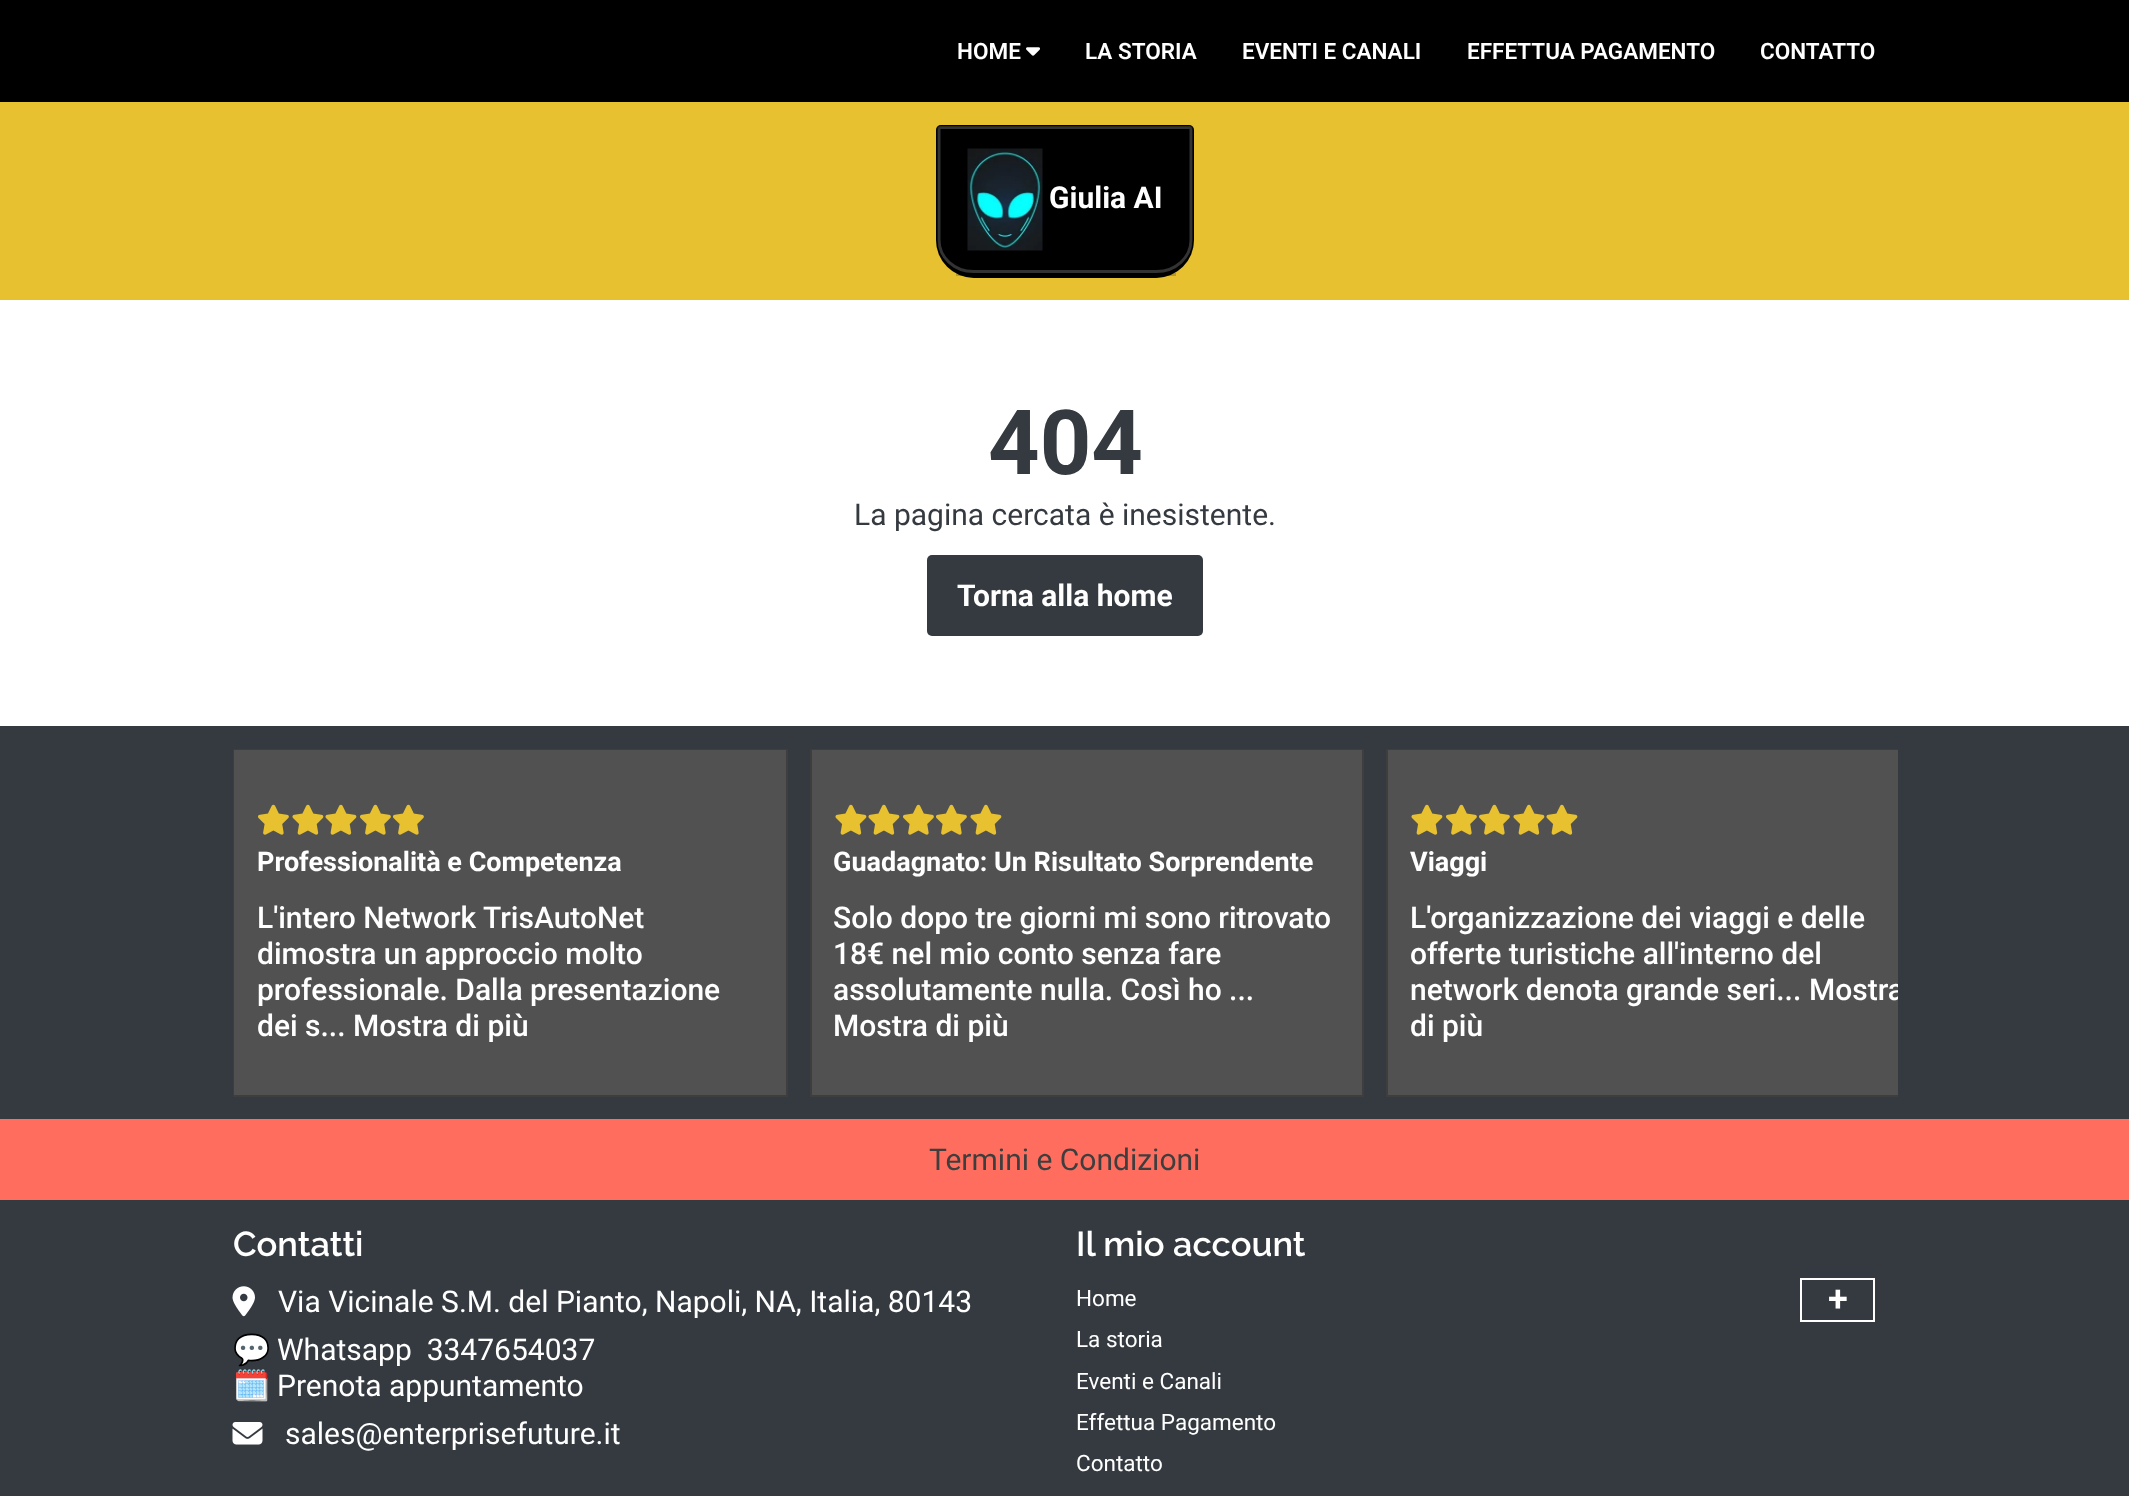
(async () => {
    const canvas = document.querySelector("canvas");
    canvas.width = 2129;
    canvas.height = 1496;
    const context = canvas.getContext("2d");
    context.miterLimit = 4;
    context.fontKerning = "normal";
    function write(s, x, y, font, color) {
        context.font = font;
        context.fillStyle = color;
        context.fillText(s, x, y);
    }
    function block(x, y, w, h, color) {
        context.fillStyle = color;
        context.fillRect(x, y, w, h);
    }
    function card(x, y, w, h, r, color) {
        context.fillStyle = color;
        context.beginPath();
        context.roundRect(x, y, w, h, r);
        context.fill();
    }
    async function photo(src, x, y, w, h) {
        const img = new Image();
        img.src = src;
        await img.decode();
        context.drawImage(img, x, y, w, h);
    }

    block(0, 0, 2129, 1496, "rgb(255, 255, 255)");
    block(0, 0, 2129, 102, "rgb(0, 0, 0)");
    write("HOME", 957, 59, "600 22.5px Roboto", "rgb(255, 255, 255)");
    await photo("media/1.png", 1026, 47, 14, 9);
    write("LA STORIA", 1085, 59, "600 22.5px Roboto", "rgb(255, 255, 255)");
    write("EVENTI E CANALI", 1242, 59, "600 22.5px Roboto", "rgb(255, 255, 255)");
    write("EFFETTUA PAGAMENTO", 1467, 59, "600 22.5px Roboto", "rgb(255, 255, 255)");
    write("CONTATTO", 1760, 59, "600 22.5px Roboto", "rgb(255, 255, 255)");
    block(0, 102, 2129, 198, "rgb(231, 193, 48)");
    context.fillStyle = "rgb(0, 0, 0)";
    context.beginPath();
    context.roundRect(936, 125, 258, 153, [5, 5, 38, 38]);
    context.fill();
    context.beginPath();
    context.moveTo(940.5, 127.5);
    context.lineTo(1189.5, 127.5);
    context.bezierCurveTo(1190.5, 127.5, 1191, 128, 1191, 129);
    context.lineTo(1191, 240);
    context.bezierCurveTo(1191, 257.5, 1175.5, 271.5, 1156.5, 271.5);
    context.lineTo(973.5, 271.5);
    context.bezierCurveTo(954.5, 271.5, 939, 257.5, 939, 240);
    context.lineTo(939, 129);
    context.bezierCurveTo(939, 128, 939.5, 127.5, 940.5, 127.5);
    context.closePath();
    context.strokeStyle = "rgb(51, 51, 51)";
    context.lineWidth = 3;
    context.stroke();
    context.beginPath();
    context.roundRect(937, 126, 256, 151, [4, 4, 37, 37]);
    context.strokeStyle = "rgba(0, 0, 0, 0.2)";
    context.lineWidth = 2;
    context.stroke();
    block(956, 273, 220, 3, "rgba(0, 0, 0, 0.2)");
    await photo("media/2.png", 967, 148, 76, 103);
    write("Giulia AI", 1049, 208, "bold 30px Roboto", "rgb(255, 255, 255)");
    write("404", 988, 474, "bold 90px Roboto", "rgb(52, 58, 64)");
    write("La pagina cercata è inesistente.", 854, 525, "30px Roboto", "rgb(52, 58, 64)");
    card(927, 555, 276, 81, 5, "rgb(52, 58, 64)");
    write("Torna alla home", 957, 606, "bold 30px Roboto", "rgb(255, 255, 255)");
    block(0, 726, 2129, 393, "rgb(52, 58, 64)");
    block(233, 749, 555, 348, "rgb(62, 62, 62)");
    block(234, 750, 552, 345, "rgb(81, 81, 81)");
    await photo("media/3.png", 258, 804, 31, 31);
    await photo("media/4.png", 292, 804, 32, 31);
    await photo("media/4.png", 325, 804, 32, 31);
    await photo("media/3.png", 360, 804, 31, 31);
    await photo("media/3.png", 393, 804, 31, 31);
    write("Professionalità e Competenza", 257, 871, "bold 27px Roboto", "rgb(255, 255, 255)");
    write("L'intero Network TrisAutoNet", 257, 928, "500 30px Roboto", "rgb(255, 255, 255)");
    write("dimostra un approccio molto", 257, 964, "500 30px Roboto", "rgb(255, 255, 255)");
    write("professionale. Dalla presentazione", 257, 1000, "500 30px Roboto", "rgb(255, 255, 255)");
    write("dei s... Mostra di più", 257, 1036, "500 30px Roboto", "rgb(255, 255, 255)");
    block(810, 749, 554, 348, "rgb(62, 62, 62)");
    block(812, 750, 550, 345, "rgb(81, 81, 81)");
    await photo("media/4.png", 835, 804, 32, 31);
    await photo("media/4.png", 868, 804, 32, 31);
    await photo("media/3.png", 903, 804, 31, 31);
    await photo("media/3.png", 936, 804, 31, 31);
    await photo("media/4.png", 970, 804, 32, 31);
    write("Guadagnato: Un Risultato Sorprendente", 833, 871, "bold 27px Roboto", "rgb(255, 255, 255)");
    write("Solo dopo tre giorni mi sono ritrovato", 833, 928, "500 30px Roboto", "rgb(255, 255, 255)");
    write("18€ nel mio conto senza fare", 833, 964, "500 30px Roboto", "rgb(255, 255, 255)");
    write("assolutamente nulla. Così ho ...", 833, 1000, "500 30px Roboto", "rgb(255, 255, 255)");
    write("Mostra di più", 833, 1036, "500 30px Roboto", "rgb(255, 255, 255)");
    block(1386, 749, 512, 348, "rgb(62, 62, 62)");
    block(1388, 750, 510, 345, "rgb(81, 81, 81)");
    await photo("media/4.png", 1411, 804, 32, 31);
    await photo("media/3.png", 1446, 804, 31, 31);
    await photo("media/3.png", 1479, 804, 31, 31);
    await photo("media/4.png", 1513, 804, 32, 31);
    await photo("media/4.png", 1546, 804, 32, 31);
    write("Viaggi", 1410, 871, "bold 27px Roboto", "rgb(255, 255, 255)");
    write("L'organizzazione dei viaggi e delle", 1410, 928, "500 30px Roboto", "rgb(255, 255, 255)");
    write("offerte turistiche all'interno del", 1410, 964, "500 30px Roboto", "rgb(255, 255, 255)");
    write("network denota grande seri...", 1410, 1000, "500 30px Roboto", "rgb(255, 255, 255)");
    context.save();
    context.beginPath();
    context.rect(233, 749, 1665, 348);
    context.clip();
    write("Mostra", 1809, 1000, "500 30px Roboto", "rgb(255, 255, 255)");
    context.restore();
    write("di più", 1410, 1036, "500 30px Roboto", "rgb(255, 255, 255)");
    block(0, 1119, 2129, 81, "rgb(255, 109, 94)");
    write("Termini e Condizioni", 929, 1170, "30px Roboto", "rgb(62, 62, 62)");
    block(0, 1200, 2129, 296, "rgb(52, 58, 64)");
    write("Contatti", 233, 1256, "600 34.5px Raleway", "rgb(255, 255, 255)");
    await photo("media/5.png", 232, 1286, 23, 31);
    write("Via Vicinale S.M. del Pianto, Napoli, NA, Italia, 80143", 278, 1312, "30px Roboto", "rgb(255, 255, 255)");
    write("💬", 233, 1360, "30px Noto Color Emoji", "rgb(255, 255, 255)");
    write("Whatsapp  3347654037", 277, 1360, "30px Roboto", "rgb(255, 255, 255)");
    write("🗓️", 233, 1396, "30px Noto Color Emoji", "rgb(255, 255, 255)");
    write("Prenota appuntamento", 277, 1396, "30px Roboto", "rgb(255, 255, 255)");
    await photo("media/6.png", 232, 1422, 31, 23);
    write("sales@enterprisefuture.it", 285, 1444, "30px Roboto", "rgb(255, 255, 255)");
    write("Il mio account", 1076, 1256, "600 34.5px Raleway", "rgb(255, 255, 255)");
    write("Home", 1076, 1306, "22.5px Roboto", "rgb(255, 255, 255)");
    context.strokeStyle = "rgb(255, 255, 255)";
    context.strokeRect(1801, 1279, 73, 42);
    write("+", 1828, 1311, "600 36px Roboto", "rgb(255, 255, 255)");
    write("La storia", 1076, 1347, "22.5px Roboto", "rgb(255, 255, 255)");
    write("Eventi e Canali", 1076, 1389, "22.5px Roboto", "rgb(255, 255, 255)");
    write("Effettua Pagamento", 1076, 1430, "22.5px Roboto", "rgb(255, 255, 255)");
    write("Contatto", 1076, 1471, "22.5px Roboto", "rgb(255, 255, 255)");
})();
